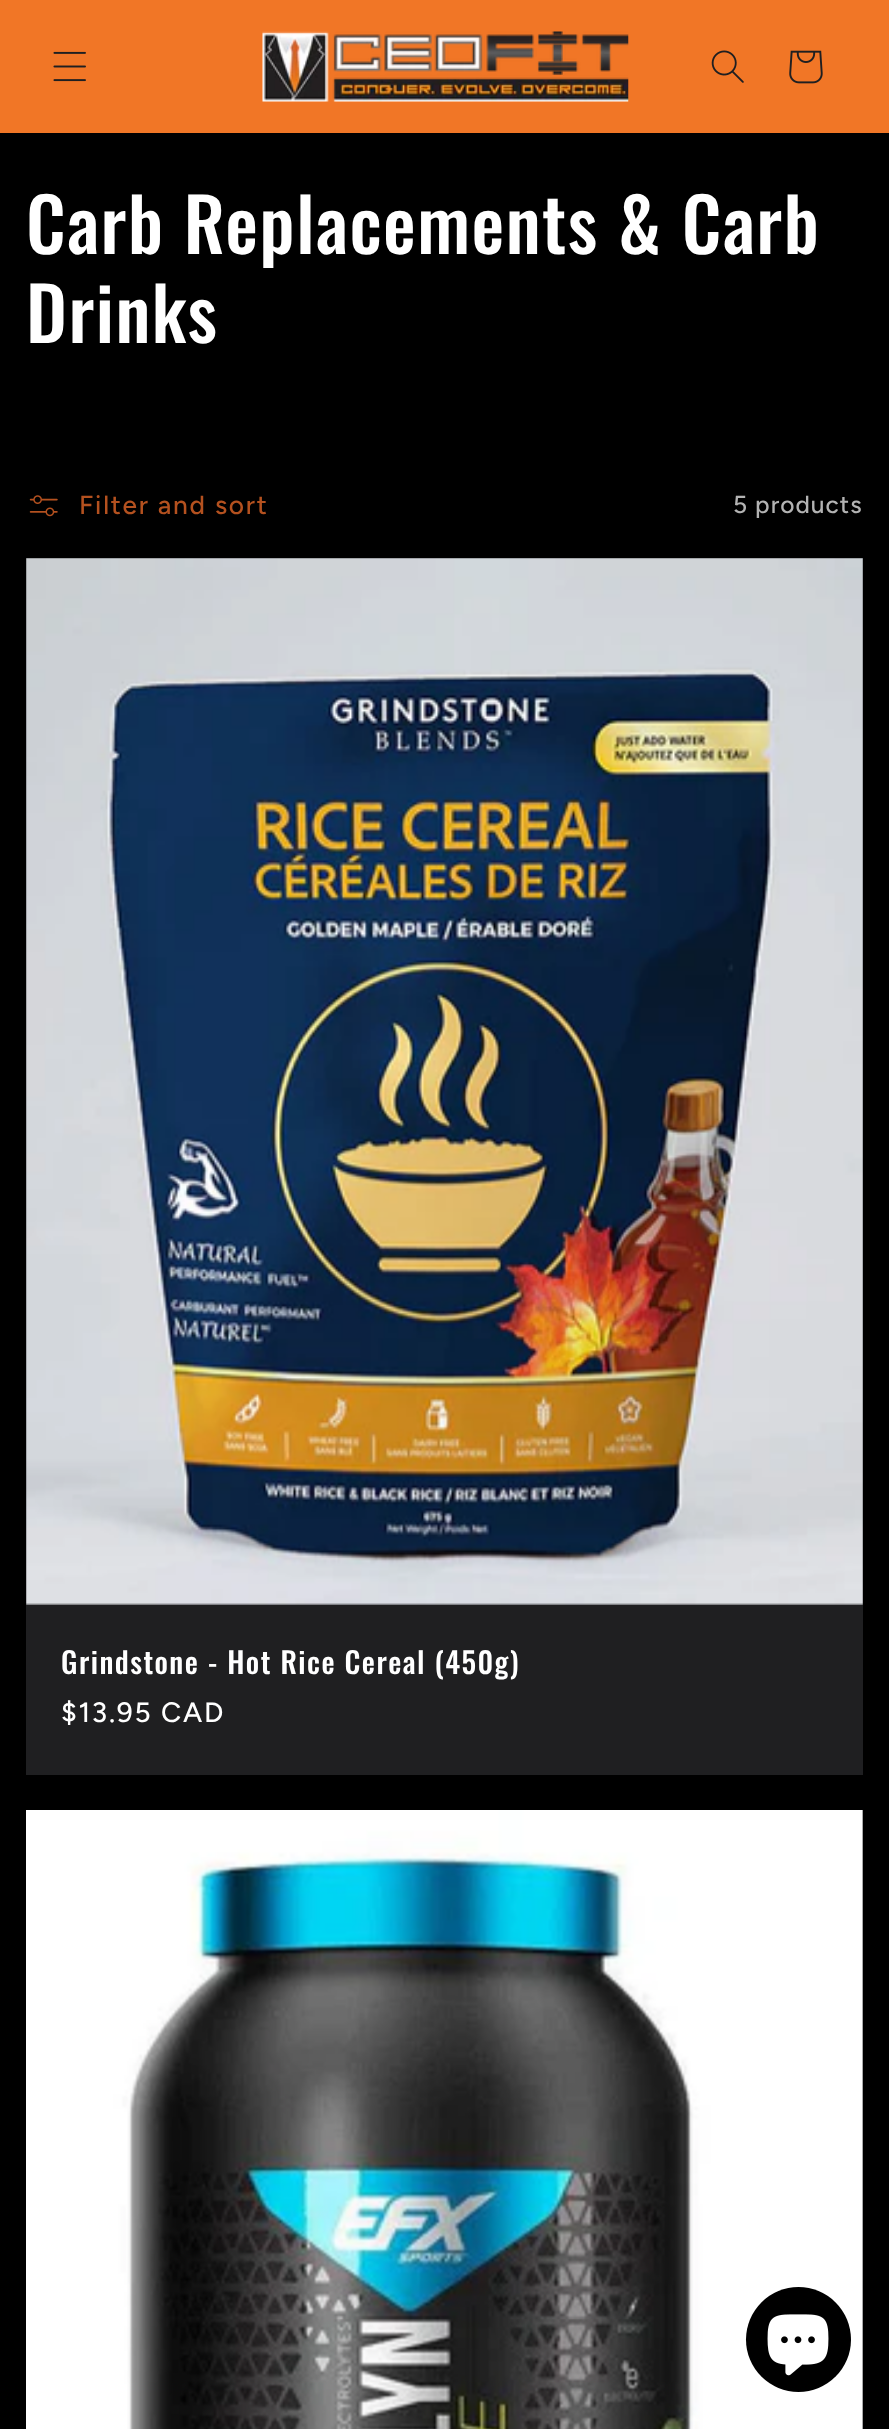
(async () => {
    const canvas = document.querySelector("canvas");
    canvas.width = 889;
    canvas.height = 2429;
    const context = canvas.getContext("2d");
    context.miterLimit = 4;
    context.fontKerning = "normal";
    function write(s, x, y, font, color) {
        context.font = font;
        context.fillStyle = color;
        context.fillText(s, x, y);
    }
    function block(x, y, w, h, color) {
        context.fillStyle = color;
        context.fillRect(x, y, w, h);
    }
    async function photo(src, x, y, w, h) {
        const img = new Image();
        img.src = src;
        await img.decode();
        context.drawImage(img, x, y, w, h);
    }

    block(0, 0, 889, 2429, "rgb(0, 0, 0)");
    block(0, 0, 889, 133, "rgb(241, 118, 38)");
    await photo("media/1.png", 53, 51, 33, 31);
    await photo("media/2.png", 262, 31, 367, 71);
    await photo("media/3.png", 711, 50, 33, 33);
    await photo("media/4.png", 789, 50, 34, 34);
    context.letterSpacing = "1.45px";
    write("Carb Replacements & Carb", 26, 254, "500 73.5px Oswald", "rgb(255, 255, 255)");
    write("Drinks", 26, 343, "500 73.5px Oswald", "rgb(255, 255, 255)");
    await photo("media/5.png", 29, 495, 29, 22);
    context.letterSpacing = "1.75px";
    write("Filter and sort", 79, 514, "500 26.25px Figtree", "rgb(180, 81, 31)");
    context.letterSpacing = "1px";
    write("5 products", 733, 513, "500 24.5px Figtree", "rgb(179, 179, 179)");
    block(26, 558, 837, 1217, "rgb(31, 31, 33)");
    await photo("media/6.png", 26, 558, 837, 1047);
    context.letterSpacing = "1.45px";
    write("Grindstone - Hot Rice Cereal (450g)", 61, 1674, "500 29.4px Oswald", "rgb(255, 255, 255)");
    context.letterSpacing = "1.75px";
    write("$13.95 CAD", 61, 1722, "500 28px Figtree", "rgb(255, 255, 255)");
    block(862, 1810, 1, 619, "rgb(31, 31, 33)");
    await photo("media/7.png", 26, 1810, 837, 619);
    context.fillStyle = "rgb(0, 0, 0)";
    context.beginPath();
    context.arc(798.5, 2339.5, 52.5, 0, Math.PI * 2);
    context.fill();
    await photo("media/8.png", 767, 2314, 62, 62);
})();
